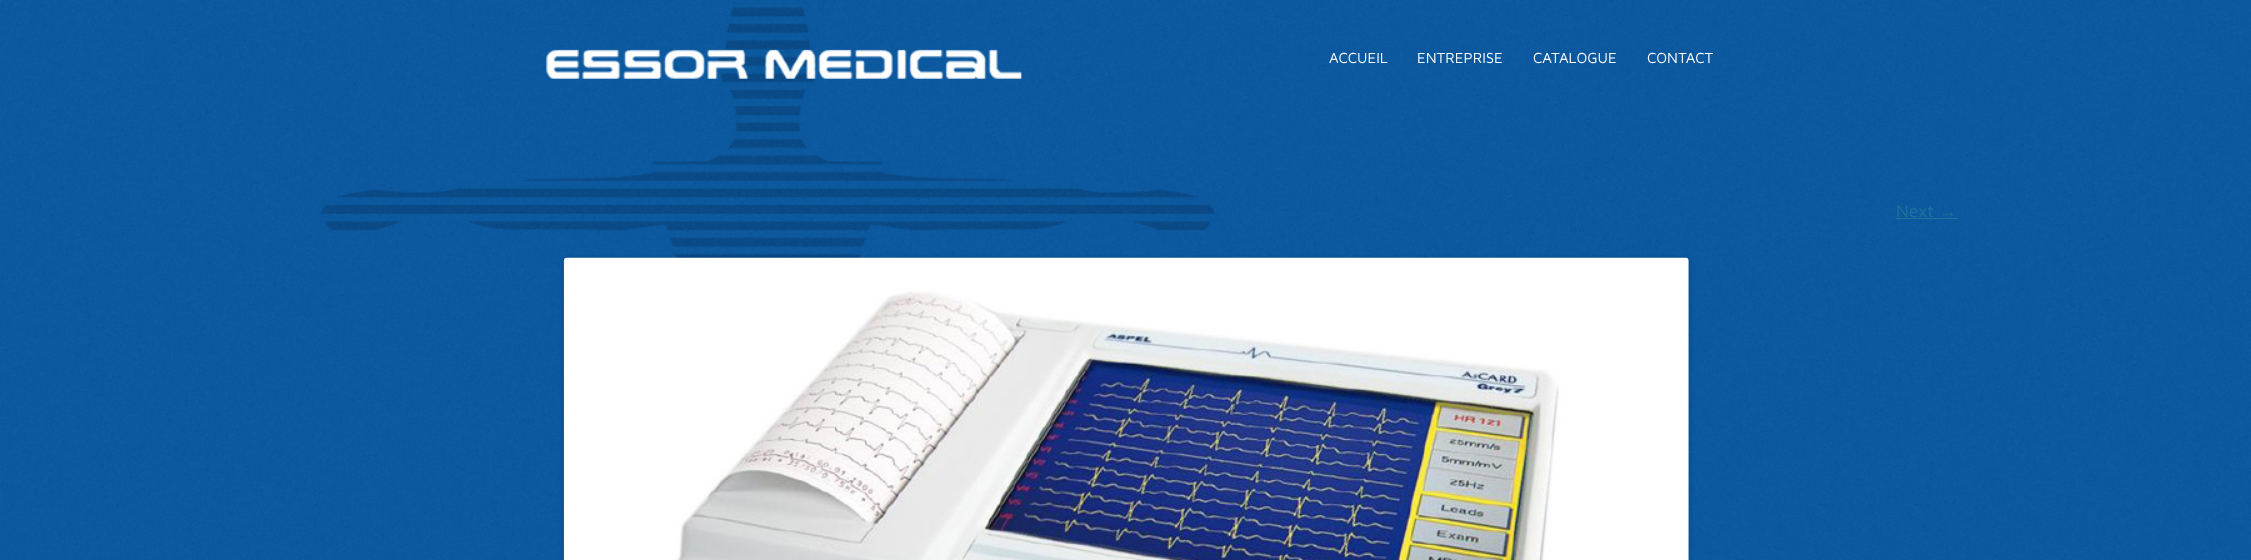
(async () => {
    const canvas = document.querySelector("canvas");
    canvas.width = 2251;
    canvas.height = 560;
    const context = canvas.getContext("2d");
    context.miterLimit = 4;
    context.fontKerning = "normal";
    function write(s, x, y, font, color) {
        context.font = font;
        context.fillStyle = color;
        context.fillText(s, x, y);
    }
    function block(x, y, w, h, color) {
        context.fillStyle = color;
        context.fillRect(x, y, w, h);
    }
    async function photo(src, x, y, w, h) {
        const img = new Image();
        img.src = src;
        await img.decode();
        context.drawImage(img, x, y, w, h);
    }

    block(0, 0, 2251, 560, "rgb(255, 255, 255)");
    await photo("media/1.png", 0, 0, 2251, 560);
    await photo("media/2.png", 295, 0, 1562, 560);
    await photo("media/3.png", 546, 49, 476, 30);
    write("ACCUEIL", 1329, 63, "15px Maven Pro", "rgb(255, 255, 255)");
    write("ENTREPRISE", 1417, 63, "15px Maven Pro", "rgb(255, 255, 255)");
    write("CATALOGUE", 1533, 63, "15px Maven Pro", "rgb(255, 255, 255)");
    write("CONTACT", 1647, 63, "15px Maven Pro", "rgb(255, 255, 255)");
    write("Next", 1896, 217, "17.5px Maven Pro", "rgb(33, 117, 155)");
    write("→", 1939, 217, "17.5px Liberation Sans", "rgb(33, 117, 155)");
    block(1896, 218, 62, 1, "rgb(33, 117, 155)");
    context.fillStyle = "rgba(0, 0, 0, 0.2)";
    context.filter = "blur(2.5px)";
    context.beginPath();
    context.roundRect(564, 259, 1125, 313, 4);
    context.fill();
    context.filter = "none";
    await photo("media/4.png", 563, 257, 1126, 303);
})();
